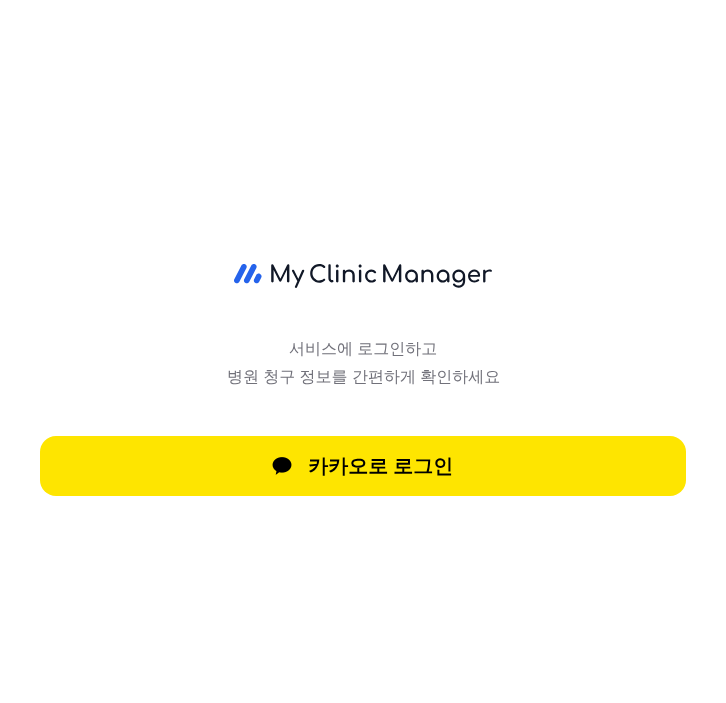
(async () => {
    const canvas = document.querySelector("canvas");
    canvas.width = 726;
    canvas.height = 703;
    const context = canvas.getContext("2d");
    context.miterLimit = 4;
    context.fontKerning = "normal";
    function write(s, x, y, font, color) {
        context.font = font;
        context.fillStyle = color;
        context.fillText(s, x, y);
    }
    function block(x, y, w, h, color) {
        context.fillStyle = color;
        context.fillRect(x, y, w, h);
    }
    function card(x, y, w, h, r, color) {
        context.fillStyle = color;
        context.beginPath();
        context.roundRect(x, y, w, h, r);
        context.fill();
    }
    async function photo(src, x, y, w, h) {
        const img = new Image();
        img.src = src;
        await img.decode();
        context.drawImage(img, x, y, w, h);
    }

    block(0, 0, 726, 703, "rgb(255, 255, 255)");
    await photo("media/1.png", 234, 264, 258, 24);
    context.wordSpacing = "-0.5px";
    write("서비스에 로그인하고", 289, 354, "500 16px WenQuanYi Zen Hei", "rgb(113, 113, 122)");
    write("병원 청구 정보를 간편하게 확인하세요", 227, 382, "500 16px WenQuanYi Zen Hei", "rgb(113, 113, 122)");
    card(40, 436, 646, 60, 16, "rgb(254, 229, 0)");
    await photo("media/2.png", 272, 457, 20, 18);
    context.wordSpacing = "-1px";
    write("카카오로 로그인", 308, 473, "bold 20px WenQuanYi Zen Hei", "rgb(0, 0, 0)");
})();
